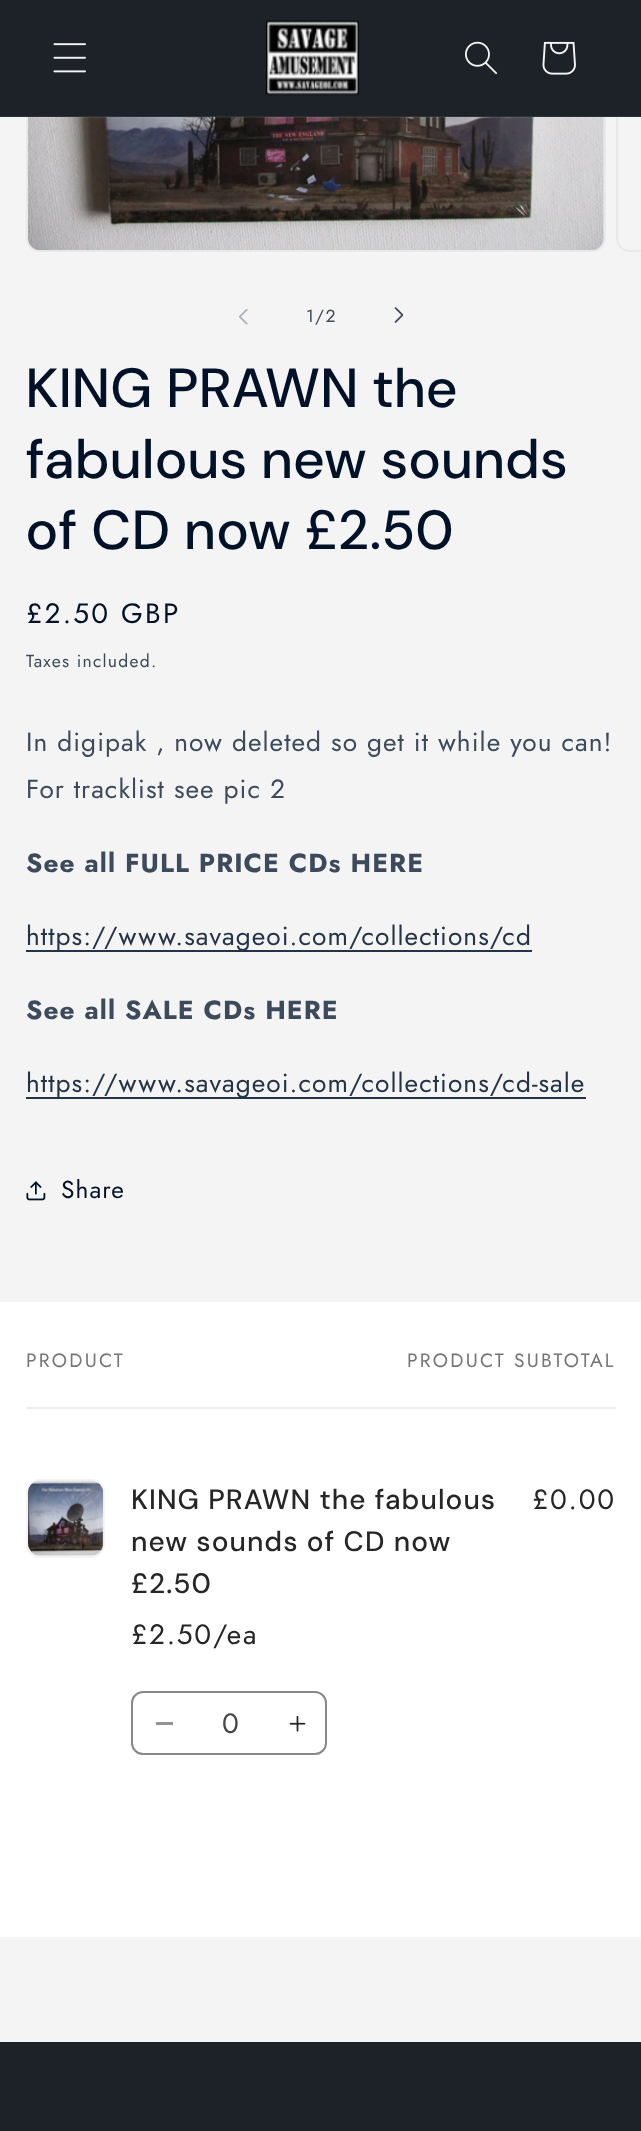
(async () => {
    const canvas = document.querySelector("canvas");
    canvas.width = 641;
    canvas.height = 2131;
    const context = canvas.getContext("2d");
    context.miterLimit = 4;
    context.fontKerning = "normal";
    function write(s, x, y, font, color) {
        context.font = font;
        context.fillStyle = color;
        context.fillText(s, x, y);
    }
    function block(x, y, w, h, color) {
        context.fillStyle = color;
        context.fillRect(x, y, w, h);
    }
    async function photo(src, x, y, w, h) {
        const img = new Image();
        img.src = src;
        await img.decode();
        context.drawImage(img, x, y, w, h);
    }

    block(0, 0, 641, 2131, "rgb(244, 244, 244)");
    context.beginPath();
    context.roundRect(27, -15, 578, 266, 13);
    context.strokeStyle = "rgb(232, 233, 234)";
    context.lineWidth = 2;
    context.stroke();
    context.beginPath();
    context.roundRect(617, -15, 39, 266, 13);
    context.stroke();
    block(0, 0, 641, 117, "rgb(28, 34, 40)");
    await photo("media/5.png", 28, 117, 576, 134);
    block(0, 116, 641, 2, "rgba(244, 244, 244, 0.08)");
    await photo("media/1.png", 53, 43, 33, 30);
    await photo("media/2.png", 266, 20, 93, 76);
    await photo("media/3.png", 465, 41, 32, 34);
    await photo("media/4.png", 542, 41, 34, 34);
    await photo("media/6.png", 239, 309, 9, 16);
    context.letterSpacing = "1.25px";
    write("1/2", 306, 322, "17.5px Jost", "rgb(61, 74, 91)");
    await photo("media/7.png", 394, 307, 10, 16);
    context.letterSpacing = "1.1px";
    write("KING PRAWN the", 26, 407, "500 55.1px DM Sans", "rgb(0, 17, 40)");
    write("fabulous new sounds", 26, 478, "500 55.1px DM Sans", "rgb(0, 17, 40)");
    write("of CD now £2.50", 26, 549, "500 55.1px DM Sans", "rgb(0, 17, 40)");
    context.letterSpacing = "2.25px";
    write("£2.50 GBP", 26, 623, "28px Jost", "rgb(0, 17, 40)");
    context.letterSpacing = "1.25px";
    write("Taxes included.", 26, 667, "17.5px Jost", "rgb(61, 74, 91)");
    context.letterSpacing = "1.05px";
    write("In digipak , now deleted so get it while you can!", 26, 751, "26.25px Jost", "rgb(61, 74, 91)");
    write("For tracklist see pic 2", 26, 798, "26.25px Jost", "rgb(61, 74, 91)");
    write("See all FULL PRICE CDs HERE", 26, 872, "bold 26.25px Jost", "rgb(61, 74, 91)");
    block(26, 950, 506, 2, "rgb(37, 51, 71)");
    write("https://www.savageoi.com/collections/cd", 26, 945, "26.25px Jost", "rgb(37, 51, 71)");
    write("See all SALE CDs HERE", 26, 1019, "bold 26.25px Jost", "rgb(61, 74, 91)");
    block(26, 1097, 560, 2, "rgb(37, 51, 71)");
    write("https://www.savageoi.com/collections/cd-sale", 26, 1092, "26.25px Jost", "rgb(37, 51, 71)");
    await photo("media/8.png", 26, 1181, 20, 20);
    write("Share", 61, 1198, "24.5px Jost", "rgb(0, 17, 40)");
    block(0, 1302, 641, 635, "rgb(255, 255, 255)");
    block(26, 1407, 590, 2, "rgb(238, 238, 238)");
    context.letterSpacing = "2.25px";
    write("PRODUCT", 26, 1367, "19.25px Jost", "rgb(117, 117, 117)");
    write("PRODUCT SUBTOTAL", 407, 1367, "19.25px Jost", "rgb(117, 117, 117)");
    context.beginPath();
    context.roundRect(27, 1480, 77, 77, 13);
    context.strokeStyle = "rgb(244, 244, 244)";
    context.stroke();
    await photo("media/9.png", 28, 1480, 76, 76);
    context.letterSpacing = "1.05px";
    write("KING PRAWN the fabulous", 131, 1509, "500 28px 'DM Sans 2'", "rgb(38, 38, 38)");
    write("new sounds of CD now", 131, 1551, "500 28px 'DM Sans 2'", "rgb(38, 38, 38)");
    write("£2.50", 131, 1593, "500 28px 'DM Sans 2'", "rgb(38, 38, 38)");
    context.letterSpacing = "1.75px";
    write("£2.50/ea", 131, 1644, "28px Jost", "rgb(38, 38, 38)");
    write("£0.00", 532, 1509, "28px Jost", "rgb(38, 38, 38)");
    block(156, 1722, 17, 3, "rgb(147, 147, 147)");
    await photo("media/10.png", 289, 1715, 17, 17);
    context.beginPath();
    context.roundRect(132, 1692, 194, 62, 11);
    context.strokeStyle = "rgb(136, 136, 136)";
    context.stroke();
    context.letterSpacing = "0px";
    write("0", 222, 1733, "28px Jost", "rgb(71, 71, 71)");
    block(0, 2042, 641, 89, "rgb(28, 34, 40)");
})();
